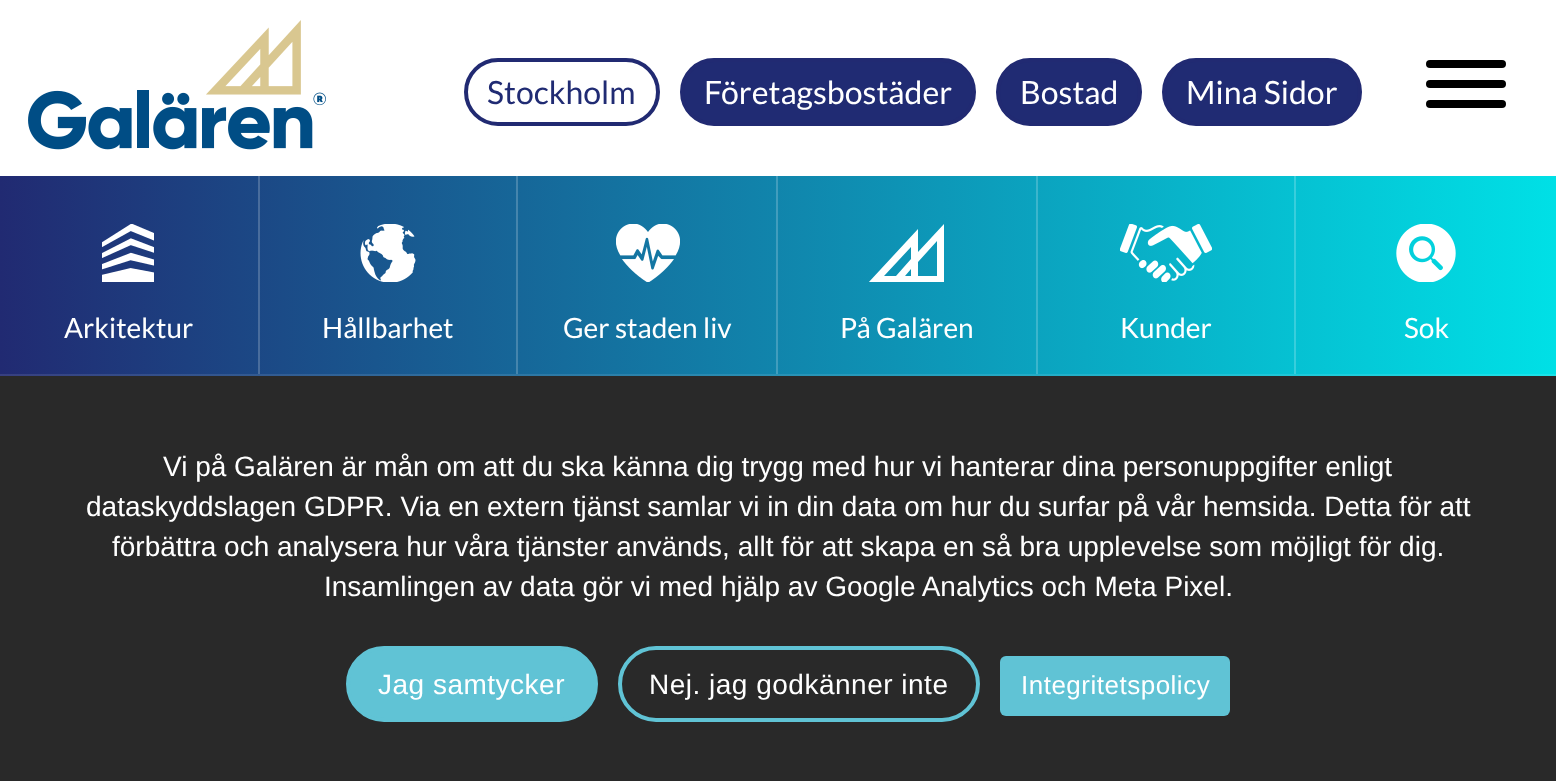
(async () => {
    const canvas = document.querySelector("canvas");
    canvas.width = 1556;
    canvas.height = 781;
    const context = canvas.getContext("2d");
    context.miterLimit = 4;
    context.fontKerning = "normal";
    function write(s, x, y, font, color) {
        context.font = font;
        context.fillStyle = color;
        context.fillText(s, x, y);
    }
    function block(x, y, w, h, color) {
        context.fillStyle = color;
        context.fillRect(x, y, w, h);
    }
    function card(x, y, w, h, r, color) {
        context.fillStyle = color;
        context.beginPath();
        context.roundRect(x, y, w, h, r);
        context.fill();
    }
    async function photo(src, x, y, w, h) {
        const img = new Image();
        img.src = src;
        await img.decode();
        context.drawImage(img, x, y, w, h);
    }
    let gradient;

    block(0, 0, 1556, 781, "rgb(255, 255, 255)");
    await photo("media/1.png", 28, 20, 298, 130);
    context.beginPath();
    context.roundRect(466, 60, 192, 64, 32);
    context.strokeStyle = "rgb(33, 42, 114)";
    context.lineWidth = 4;
    context.stroke();
    write("Stockholm", 487, 104, "32px Lato", "rgb(32, 43, 115)");
    context.beginPath();
    context.roundRect(682, 60, 292, 64, 32);
    context.fill();
    context.stroke();
    write("Företagsbostäder", 704, 104, "32px Lato", "rgb(255, 255, 255)");
    context.fillStyle = "rgb(32, 43, 115)";
    context.beginPath();
    context.roundRect(998, 60, 142, 64, 32);
    context.fill();
    context.stroke();
    write("Bostad", 1020, 104, "32px Lato", "rgb(255, 255, 255)");
    context.fillStyle = "rgb(32, 43, 115)";
    context.beginPath();
    context.roundRect(1164, 60, 196, 64, 32);
    context.fill();
    context.stroke();
    write("Mina Sidor", 1186, 104, "32px Lato", "rgb(255, 255, 255)");
    gradient = context.createLinearGradient(0, 275, 1556, 275);
    gradient.addColorStop(0, "rgb(33, 42, 114)");
    gradient.addColorStop(1, "rgb(0, 224, 230)");
    context.fillStyle = gradient;
    context.fillRect(0, 176, 1556, 198);
    gradient = context.createLinearGradient(0, 275, 1556, 275);
    gradient.addColorStop(0, "rgb(55, 63, 128)");
    gradient.addColorStop(1, "rgb(26, 227, 233)");
    context.fillStyle = gradient;
    context.fillRect(0, 374, 1556, 2);
    block(258, 176, 2, 198, "rgb(73, 109, 157)");
    await photo("media/2.png", 102, 224, 52, 58);
    write("Arkitektur", 64, 338, "28px Lato", "rgb(255, 255, 255)");
    block(516, 176, 2, 198, "rgb(69, 133, 173)");
    await photo("media/3.png", 360, 224, 56, 58);
    write("Hållbarhet", 322, 338, "28px Lato", "rgb(255, 255, 255)");
    block(776, 176, 2, 198, "rgb(65, 157, 189)");
    await photo("media/4.png", 616, 224, 64, 58);
    write("Ger staden liv", 563, 338, "28px Lato", "rgb(255, 255, 255)");
    block(1036, 176, 2, 198, "rgb(60, 181, 204)");
    context.save();
    context.beginPath();
    context.rect(868, 224, 76, 58);
    context.clip();
    context.fillStyle = "rgb(255, 255, 255)";
    context.beginPath();
    context.moveTo(911, 269);
    context.lineTo(911, 276);
    context.lineTo(905, 276);
    context.closePath();
    context.moveTo(911, 247);
    context.lineTo(911, 259);
    context.lineTo(896, 276);
    context.lineTo(884, 276);
    context.closePath();
    context.moveTo(918, 262);
    context.lineTo(937, 241);
    context.lineTo(937, 276);
    context.lineTo(918, 276);
    context.closePath();
    context.moveTo(944, 224);
    context.lineTo(918, 252);
    context.lineTo(918, 229);
    context.lineTo(868, 283);
    context.lineTo(944, 283);
    context.closePath();
    context.fill();
    context.restore();
    write("På Galären", 840, 338, "28px Lato", "rgb(255, 255, 255)");
    block(1294, 176, 2, 198, "rgb(56, 206, 220)");
    await photo("media/5.png", 1120, 224, 92, 58);
    write("Kunder", 1120, 338, "28px Lato", "rgb(255, 255, 255)");
    await photo("media/6.png", 1396, 224, 60, 58);
    write("Sok", 1404, 338, "28px Lato", "rgb(255, 255, 255)");
    card(1426, 80, 80, 8, 4, "rgb(0, 0, 0)");
    card(1426, 60, 80, 8, 4, "rgb(0, 0, 0)");
    card(1426, 100, 80, 8, 4, "rgb(0, 0, 0)");
    block(0, 376, 1556, 405, "rgb(41, 41, 41)");
    write("Vi på Galären är mån om att du ska känna dig trygg med hur vi hanterar dina personuppgifter enligt", 163, 476, "28px Liberation Sans", "rgb(255, 255, 255)");
    write("dataskyddslagen GDPR. Via en extern tjänst samlar vi in din data om hur du surfar på vår hemsida. Detta för att", 86, 516, "28px Liberation Sans", "rgb(255, 255, 255)");
    write("förbättra och analysera hur våra tjänster används, allt för att skapa en så bra upplevelse som möjligt för dig.", 112, 556, "28px Liberation Sans", "rgb(255, 255, 255)");
    write("Insamlingen av data gör vi med hjälp av Google Analytics och Meta Pixel.", 324, 596, "28px Liberation Sans", "rgb(255, 255, 255)");
    context.fillStyle = "rgb(96, 195, 213)";
    context.beginPath();
    context.roundRect(348, 648, 248, 72, 36);
    context.fill();
    context.strokeStyle = "rgb(96, 195, 213)";
    context.stroke();
    context.letterSpacing = "0.5px";
    write("Jag samtycker", 378, 694, "28px Liberation Sans", "rgb(255, 255, 255)");
    context.beginPath();
    context.roundRect(620, 648, 358, 72, 36);
    context.stroke();
    write("Nej. jag godkänner inte", 649, 694, "28px Liberation Sans", "rgb(255, 255, 255)");
    card(1000, 656, 230, 60, 6, "rgb(96, 195, 213)");
    write("Integritetspolicy", 1021, 694, "26px Liberation Sans", "rgb(255, 255, 255)");
})();
